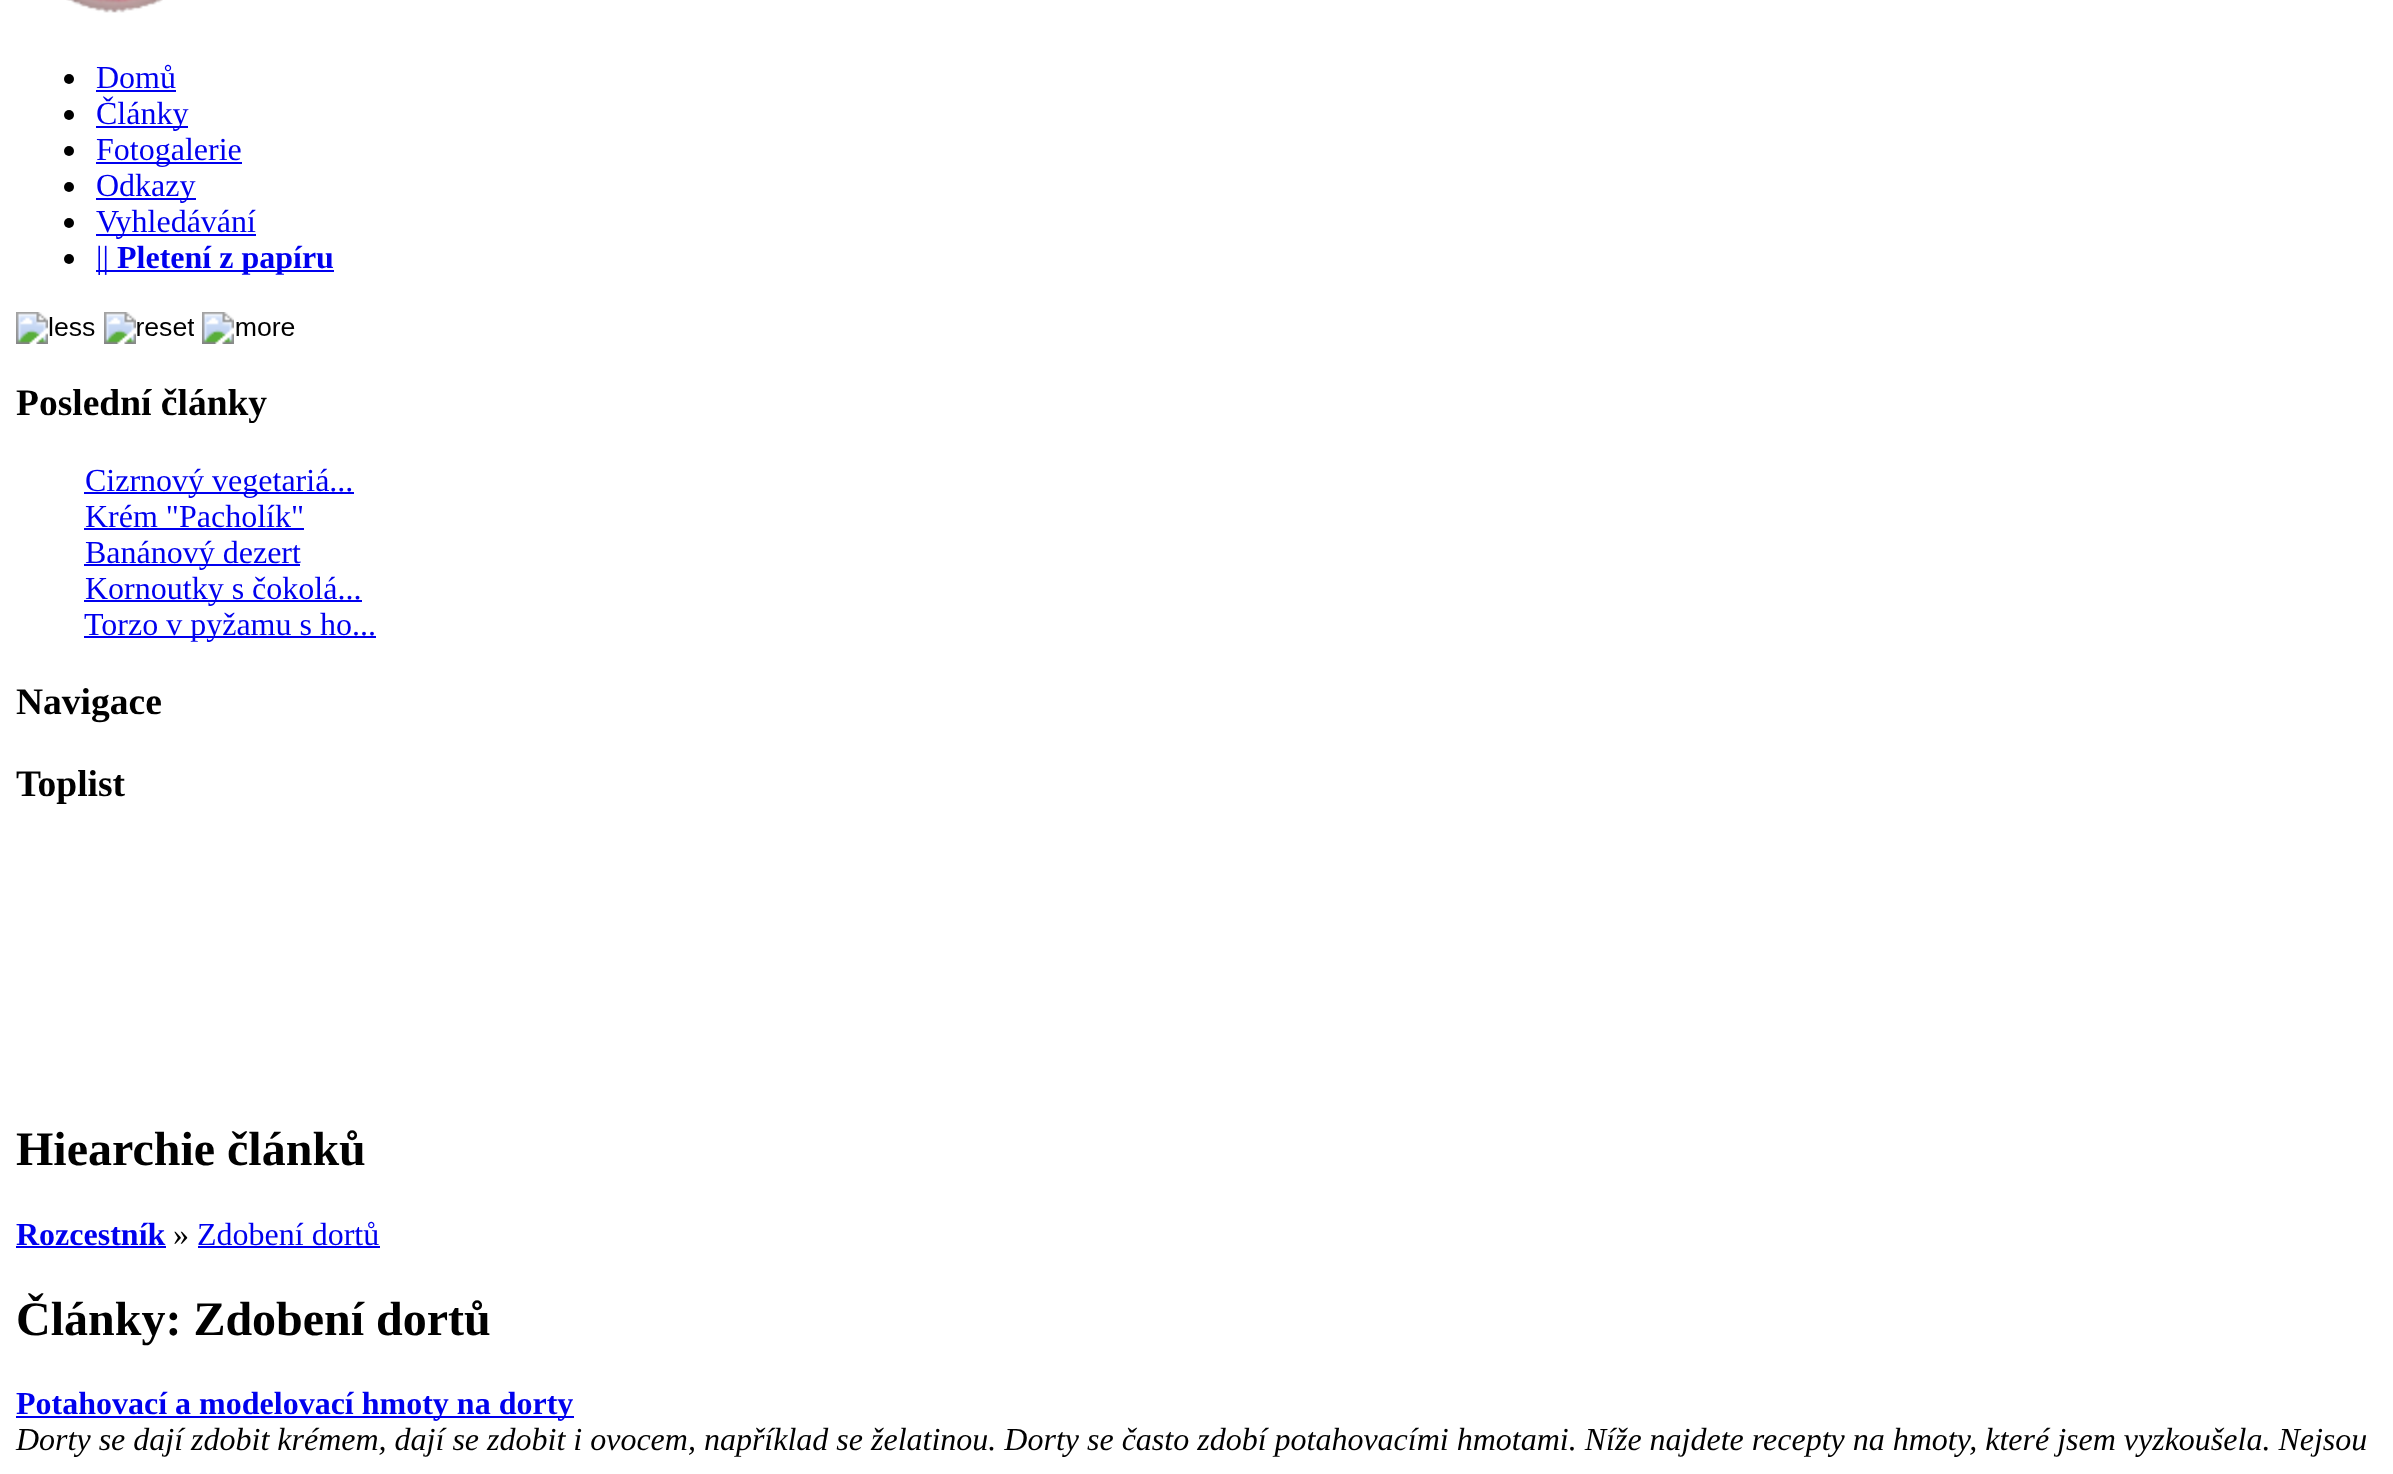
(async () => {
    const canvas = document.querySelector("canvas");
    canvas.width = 2393;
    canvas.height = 1474;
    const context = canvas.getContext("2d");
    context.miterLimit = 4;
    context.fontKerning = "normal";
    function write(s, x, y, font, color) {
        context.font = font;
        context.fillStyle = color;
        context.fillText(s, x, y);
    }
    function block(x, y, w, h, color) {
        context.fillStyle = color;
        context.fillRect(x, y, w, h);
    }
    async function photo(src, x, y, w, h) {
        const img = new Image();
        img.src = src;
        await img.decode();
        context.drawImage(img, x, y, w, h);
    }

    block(0, 0, 2393, 1474, "rgb(255, 255, 255)");
    await photo("media/1.png", 66, 0, 97, 13);
    context.fillStyle = "rgb(0, 0, 0)";
    context.beginPath();
    context.arc(69, 79, 5, 0, Math.PI * 2);
    context.fill();
    write("Domů", 96, 88, "32px Liberation Serif", "rgb(0, 0, 238)");
    block(96, 90, 80, 2, "rgb(0, 0, 238)");
    context.fillStyle = "rgb(0, 0, 0)";
    context.beginPath();
    context.arc(69, 115, 5, 0, Math.PI * 2);
    context.fill();
    block(96, 126, 92, 2, "rgb(0, 0, 238)");
    write("Články", 96, 124, "32px Liberation Serif", "rgb(0, 0, 238)");
    context.fillStyle = "rgb(0, 0, 0)";
    context.beginPath();
    context.arc(69, 151, 5, 0, Math.PI * 2);
    context.fill();
    block(96, 162, 146, 2, "rgb(0, 0, 238)");
    write("Fotogalerie", 96, 160, "32px Liberation Serif", "rgb(0, 0, 238)");
    context.fillStyle = "rgb(0, 0, 0)";
    context.beginPath();
    context.arc(69, 187, 5, 0, Math.PI * 2);
    context.fill();
    block(96, 198, 100, 2, "rgb(0, 0, 238)");
    write("Odkazy", 96, 196, "32px Liberation Serif", "rgb(0, 0, 238)");
    context.fillStyle = "rgb(0, 0, 0)";
    context.beginPath();
    context.arc(69, 223, 5, 0, Math.PI * 2);
    context.fill();
    block(96, 234, 160, 2, "rgb(0, 0, 238)");
    write("Vyhledávání", 96, 232, "32px Liberation Serif", "rgb(0, 0, 238)");
    context.fillStyle = "rgb(0, 0, 0)";
    context.beginPath();
    context.arc(69, 259, 5, 0, Math.PI * 2);
    context.fill();
    block(96, 270, 238, 2, "rgb(0, 0, 238)");
    write("||", 96, 268, "32px Liberation Serif", "rgb(0, 0, 238)");
    write("Pletení z papíru", 117, 268, "bold 32px Liberation Serif", "rgb(0, 0, 238)");
    await photo("media/2.png", 16, 312, 79, 32);
    await photo("media/3.png", 104, 312, 90, 32);
    await photo("media/4.png", 202, 312, 93, 32);
    write("Poslední články", 16, 415, "bold 37.5px Liberation Serif", "rgb(0, 0, 0)");
    block(84, 492, 270, 2, "rgb(0, 0, 238)");
    write("Cizrnový vegetariá...", 85, 491, "32px Liberation Serif", "rgb(0, 0, 238)");
    write("Krém \"Pacholík\"", 85, 527, "32px Liberation Serif", "rgb(0, 0, 238)");
    block(84, 528, 220, 2, "rgb(0, 0, 238)");
    block(84, 564, 216, 2, "rgb(0, 0, 238)");
    write("Banánový dezert", 85, 563, "32px Liberation Serif", "rgb(0, 0, 238)");
    block(84, 600, 278, 2, "rgb(0, 0, 238)");
    write("Kornoutky s čokolá...", 85, 599, "32px Liberation Serif", "rgb(0, 0, 238)");
    block(84, 636, 292, 2, "rgb(0, 0, 238)");
    write("Torzo v pyžamu s ho...", 84, 635, "32px Liberation Serif", "rgb(0, 0, 238)");
    write("Navigace", 16, 714, "bold 37.5px Liberation Serif", "rgb(0, 0, 0)");
    write("Toplist", 16, 796, "bold 37.5px Liberation Serif", "rgb(0, 0, 0)");
    write("Hiearchie článků", 16, 1165, "bold 48px Liberation Serif", "rgb(0, 0, 0)");
    write("Rozcestník", 16, 1245, "bold 32px Liberation Serif", "rgb(0, 0, 238)");
    block(16, 1246, 150, 2, "rgb(0, 0, 238)");
    write("»", 173, 1245, "32px Liberation Serif", "rgb(0, 0, 0)");
    write("Zdobení dortů", 197, 1245, "32px Liberation Serif", "rgb(0, 0, 238)");
    block(198, 1246, 182, 2, "rgb(0, 0, 238)");
    write("Články: Zdobení dortů", 16, 1335, "bold 48px Liberation Serif", "rgb(0, 0, 0)");
    block(16, 1416, 558, 2, "rgb(0, 0, 238)");
    write("Potahovací a modelovací hmoty na dorty", 16, 1414, "bold 32px Liberation Serif", "rgb(0, 0, 238)");
    write("Dorty se dají zdobit krémem, dají se zdobit i ovocem, například se želatinou. Dorty se často zdobí potahovacími hmotami. Níže najdete recepty na hmoty, které jsem vyzkoušela. Nejsou", 16, 1450, "italic 32px Liberation Serif", "rgb(0, 0, 0)");
})();
